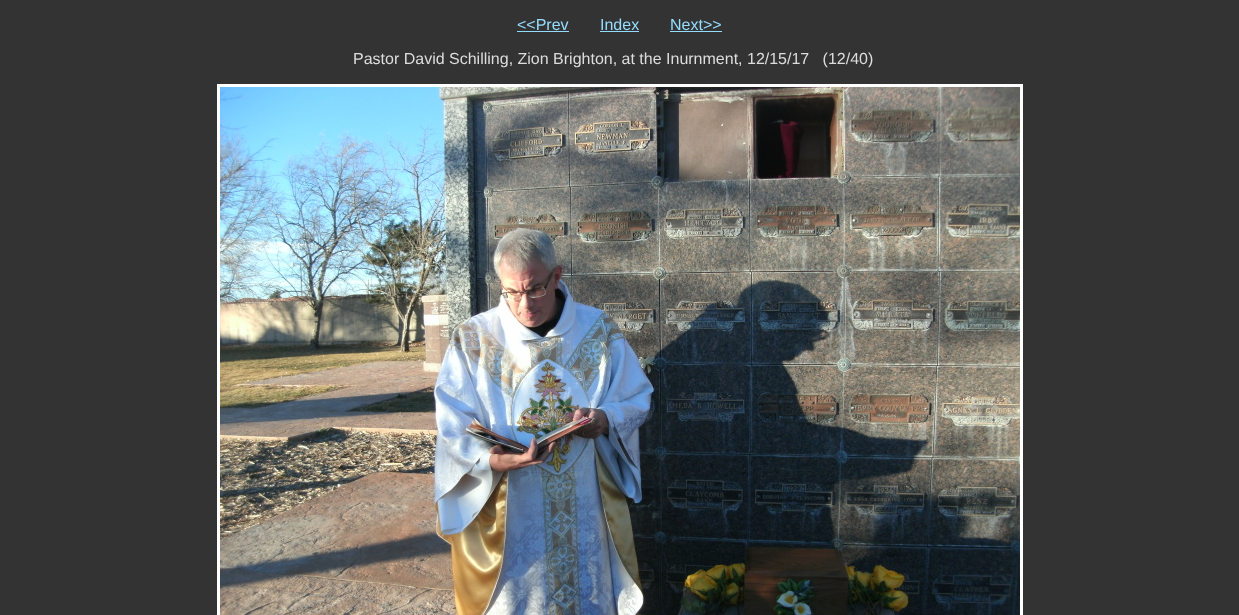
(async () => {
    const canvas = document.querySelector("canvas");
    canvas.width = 1239;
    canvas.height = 615;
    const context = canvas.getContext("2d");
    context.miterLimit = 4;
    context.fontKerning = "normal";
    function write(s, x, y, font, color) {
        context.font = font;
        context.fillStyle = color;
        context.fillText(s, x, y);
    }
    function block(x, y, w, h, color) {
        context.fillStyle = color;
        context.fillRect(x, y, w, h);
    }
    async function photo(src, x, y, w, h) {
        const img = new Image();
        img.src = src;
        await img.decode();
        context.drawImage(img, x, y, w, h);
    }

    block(0, 0, 1239, 615, "rgb(51, 51, 51)");
    write("<<Prev", 517, 30, "16px Liberation Sans", "rgb(149, 221, 255)");
    block(517, 31, 52, 1, "rgb(149, 221, 255)");
    write("Index", 600, 30, "16px Liberation Sans", "rgb(149, 221, 255)");
    block(600, 31, 39, 1, "rgb(149, 221, 255)");
    write("Next>>", 670, 30, "16px Liberation Sans", "rgb(149, 221, 255)");
    block(670, 31, 52, 1, "rgb(149, 221, 255)");
    write("Pastor David Schilling, Zion Brighton, at the Inurnment, 12/15/17   (12/40)", 353, 64, "16px Liberation Sans", "rgb(221, 221, 221)");
    context.strokeStyle = "rgb(255, 255, 255)";
    context.lineWidth = 3;
    context.strokeRect(218.5, 85.5, 803, 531);
    await photo("media/1.png", 220, 87, 800, 528);
})();
